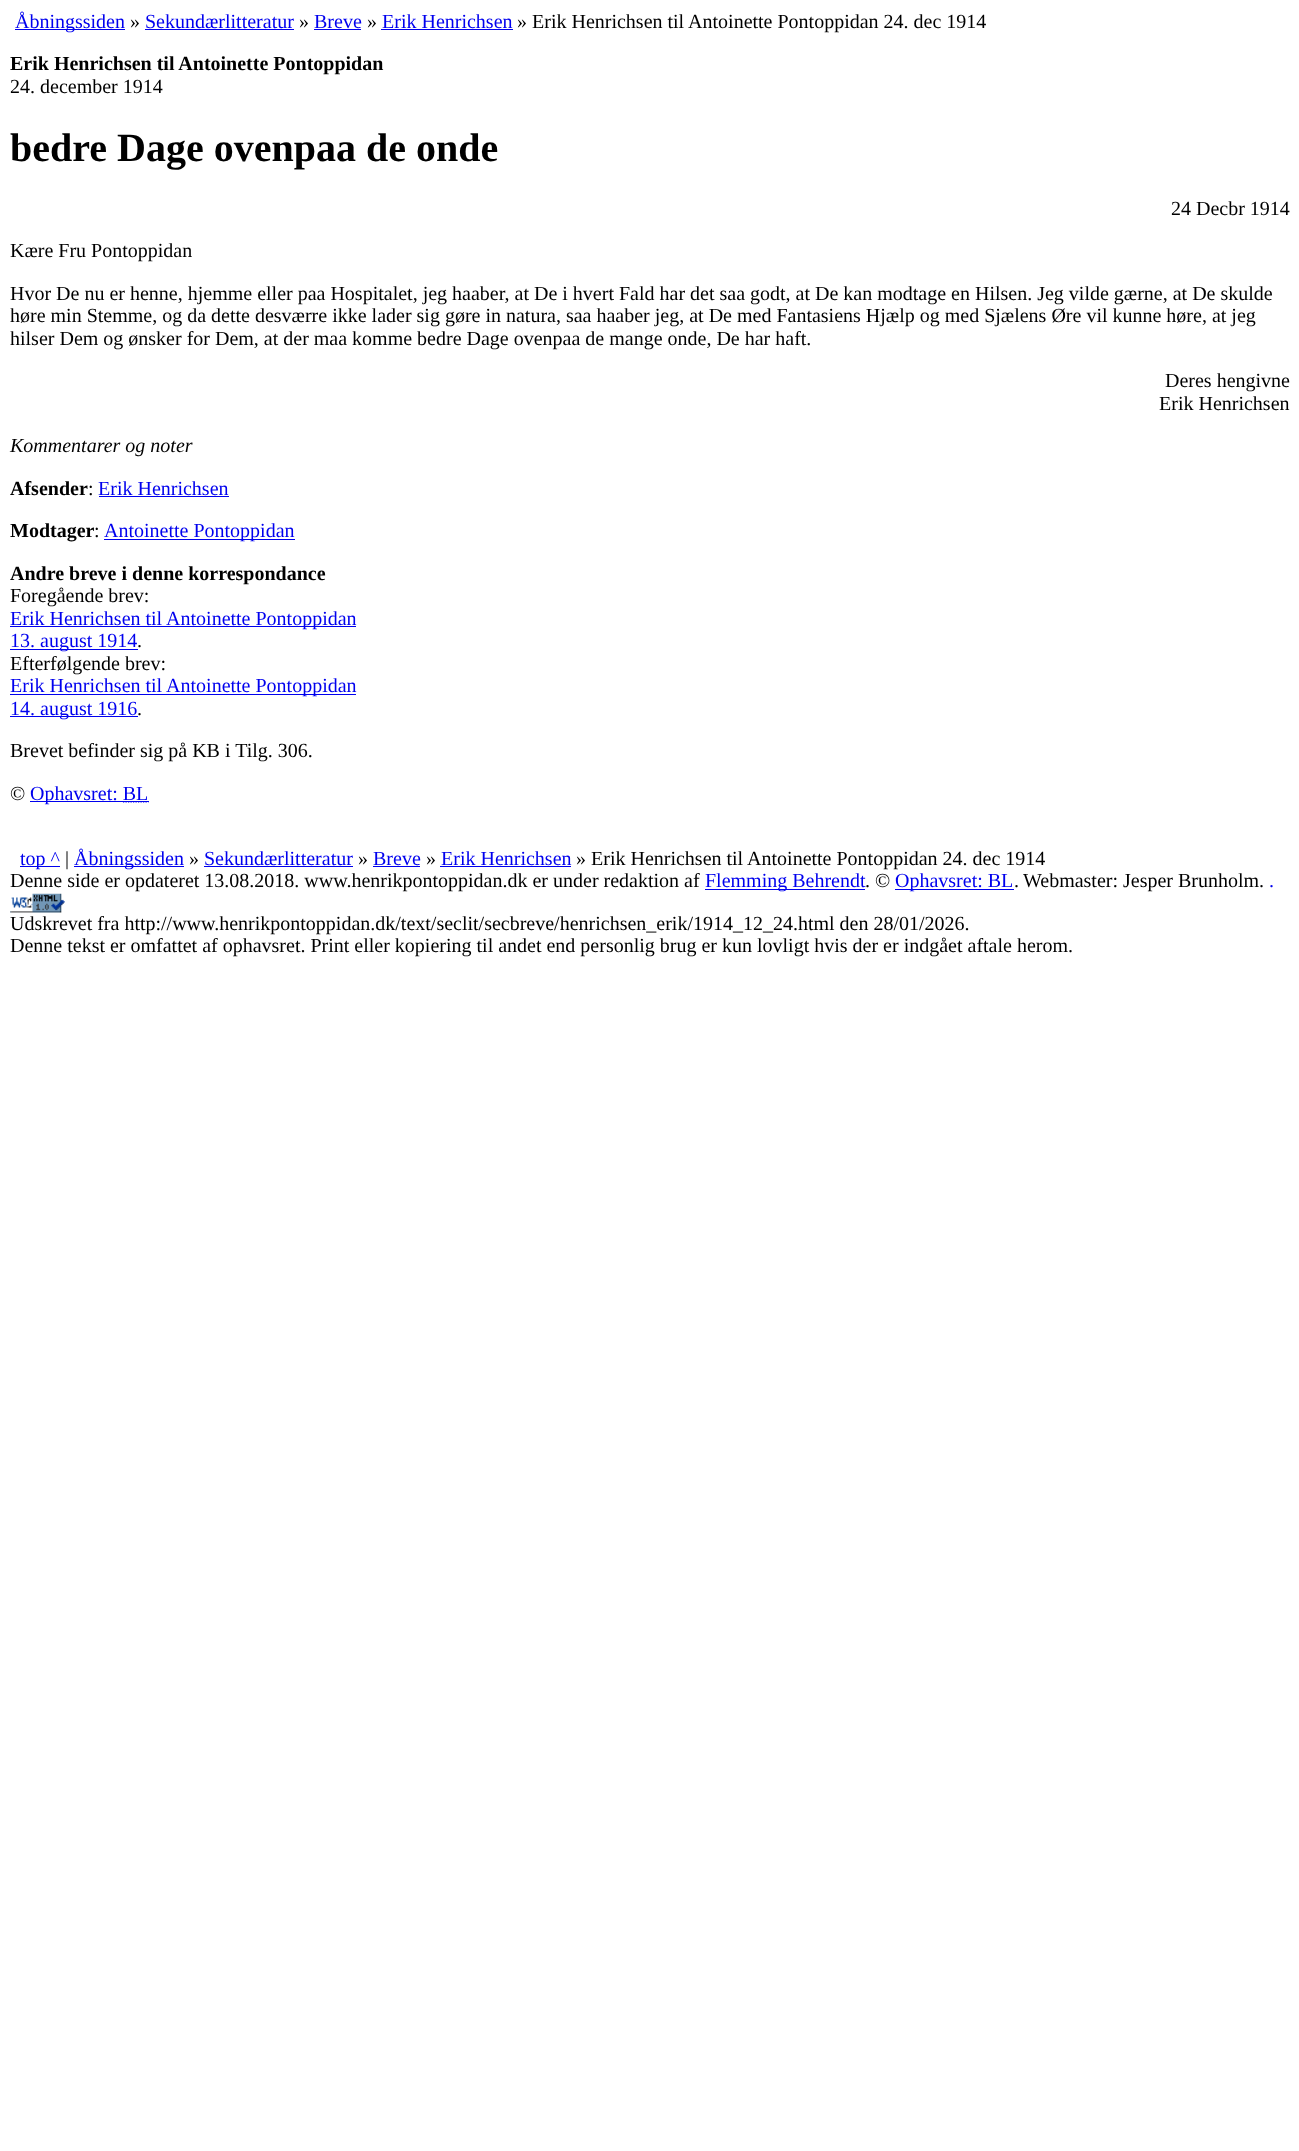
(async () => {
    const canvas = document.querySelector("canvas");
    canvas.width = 1299;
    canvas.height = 2151;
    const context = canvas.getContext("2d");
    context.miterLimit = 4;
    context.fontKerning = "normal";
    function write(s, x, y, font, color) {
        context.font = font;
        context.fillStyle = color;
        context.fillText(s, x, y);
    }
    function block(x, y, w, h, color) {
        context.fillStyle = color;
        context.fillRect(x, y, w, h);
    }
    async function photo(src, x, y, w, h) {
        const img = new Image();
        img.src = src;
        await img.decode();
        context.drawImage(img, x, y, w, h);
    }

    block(0, 0, 1299, 2151, "rgb(255, 255, 255)");
    block(15, 29, 110, 1, "rgb(0, 0, 238)");
    write("Åbningssiden", 15, 28, "20px Liberation Serif", "rgb(0, 0, 238)");
    write("»", 130, 28, "20px Liberation Serif", "rgb(0, 0, 0)");
    write("Sekundærlitteratur", 145, 28, "20px Liberation Serif", "rgb(0, 0, 238)");
    block(145, 29, 149, 1, "rgb(0, 0, 238)");
    write("»", 299, 28, "20px Liberation Serif", "rgb(0, 0, 0)");
    write("Breve", 314, 28, "20px Liberation Serif", "rgb(0, 0, 238)");
    block(314, 29, 47, 1, "rgb(0, 0, 238)");
    write("»", 367, 28, "20px Liberation Serif", "rgb(0, 0, 0)");
    write("Erik Henrichsen", 382, 28, "20px Liberation Serif", "rgb(0, 0, 238)");
    block(381, 29, 132, 1, "rgb(0, 0, 238)");
    write("» Erik Henrichsen til Antoinette Pontoppidan 24. dec 1914", 517, 28, "20px Liberation Serif", "rgb(0, 0, 0)");
    write("Erik Henrichsen til Antoinette Pontoppidan", 10, 70, "bold 20px Liberation Serif", "rgb(0, 0, 0)");
    write("24. december 1914", 10, 93, "20px Liberation Serif", "rgb(0, 0, 0)");
    write("bedre Dage ovenpaa de onde", 10, 161, "bold 40px Liberation Serif", "rgb(0, 0, 0)");
    write("24 Decbr 1914", 1171, 215, "20px Liberation Serif", "rgb(0, 0, 0)");
    write("Kære Fru Pontoppidan", 10, 257, "20px Liberation Serif", "rgb(0, 0, 0)");
    write("Hvor De nu er henne, hjemme eller paa Hospitalet, jeg haaber, at De i hvert Fald har det saa godt, at De kan modtage en Hilsen. Jeg vilde gærne, at De skulde", 10, 300, "20px Liberation Serif", "rgb(0, 0, 0)");
    write("høre min Stemme, og da dette desværre ikke lader sig gøre in natura, saa haaber jeg, at De med Fantasiens Hjælp og med Sjælens Øre vil kunne høre, at jeg", 10, 322, "20px Liberation Serif", "rgb(0, 0, 0)");
    write("hilser Dem og ønsker for Dem, at der maa komme bedre Dage ovenpaa de mange onde, De har haft.", 10, 345, "20px Liberation Serif", "rgb(0, 0, 0)");
    write("Deres hengivne", 1165, 387, "20px Liberation Serif", "rgb(0, 0, 0)");
    write("Erik Henrichsen", 1159, 410, "20px Liberation Serif", "rgb(0, 0, 0)");
    write("Kommentarer og noter", 10, 452, "italic 20px Liberation Serif", "rgb(0, 0, 0)");
    write("Afsender", 10, 495, "bold 20px Liberation Serif", "rgb(0, 0, 0)");
    write(":", 88, 495, "20px Liberation Serif", "rgb(0, 0, 0)");
    write("Erik Henrichsen", 98, 495, "20px Liberation Serif", "rgb(0, 0, 238)");
    block(99, 496, 130, 1, "rgb(0, 0, 238)");
    write("Modtager", 10, 537, "bold 20px Liberation Serif", "rgb(0, 0, 0)");
    write(":", 94, 537, "20px Liberation Serif", "rgb(0, 0, 0)");
    block(104, 539, 191, 1, "rgb(0, 0, 238)");
    write("Antoinette Pontoppidan", 104, 537, "20px Liberation Serif", "rgb(0, 0, 238)");
    write("Andre breve i denne korrespondance", 10, 580, "bold 20px Liberation Serif", "rgb(0, 0, 0)");
    write("Foregående brev:", 10, 602, "20px Liberation Serif", "rgb(0, 0, 0)");
    block(10, 626, 346, 1, "rgb(0, 0, 238)");
    write("Erik Henrichsen til Antoinette Pontoppidan", 10, 625, "20px Liberation Serif", "rgb(0, 0, 238)");
    block(10, 649, 128, 1, "rgb(0, 0, 238)");
    write("13. august 1914", 10, 647, "20px Liberation Serif", "rgb(0, 0, 238)");
    write(".", 137, 647, "20px Liberation Serif", "rgb(0, 0, 0)");
    write("Efterfølgende brev:", 10, 670, "20px Liberation Serif", "rgb(0, 0, 0)");
    block(10, 694, 346, 1, "rgb(0, 0, 238)");
    write("Erik Henrichsen til Antoinette Pontoppidan", 10, 692, "20px Liberation Serif", "rgb(0, 0, 238)");
    block(10, 716, 128, 1, "rgb(0, 0, 238)");
    write("14. august 1916", 10, 715, "20px Liberation Serif", "rgb(0, 0, 238)");
    write(".", 137, 715, "20px Liberation Serif", "rgb(0, 0, 0)");
    write("Brevet befinder sig på KB i Tilg. 306.", 10, 757, "20px Liberation Serif", "rgb(0, 0, 0)");
    write("©", 10, 800, "20px Liberation Serif", "rgb(0, 0, 0)");
    block(30, 801, 93, 1, "rgb(0, 0, 238)");
    write("Ophavsret: BL", 30, 800, "20px Liberation Serif", "rgb(0, 0, 238)");
    context.beginPath();
    context.moveTo(123, 802);
    context.lineTo(148.5, 802);
    context.strokeStyle = "rgb(0, 0, 238)";
    context.lineWidth = 1.2;
    context.setLineDash([1.25, 1.25]);
    context.stroke();
    block(123, 801, 26, 1, "rgb(0, 0, 238)");
    block(20, 866, 40, 1, "rgb(0, 0, 238)");
    write("top ^", 20, 865, "20px Liberation Serif", "rgb(0, 0, 238)");
    write("|", 65, 865, "20px Liberation Serif", "rgb(0, 0, 0)");
    block(74, 866, 110, 1, "rgb(0, 0, 238)");
    write("Åbningssiden", 74, 865, "20px Liberation Serif", "rgb(0, 0, 238)");
    write("»", 189, 865, "20px Liberation Serif", "rgb(0, 0, 0)");
    write("Sekundærlitteratur", 204, 865, "20px Liberation Serif", "rgb(0, 0, 238)");
    block(204, 866, 149, 1, "rgb(0, 0, 238)");
    write("»", 358, 865, "20px Liberation Serif", "rgb(0, 0, 0)");
    write("Breve", 373, 865, "20px Liberation Serif", "rgb(0, 0, 238)");
    block(373, 866, 47, 1, "rgb(0, 0, 238)");
    write("»", 426, 865, "20px Liberation Serif", "rgb(0, 0, 0)");
    write("Erik Henrichsen", 441, 865, "20px Liberation Serif", "rgb(0, 0, 238)");
    block(440, 866, 131, 1, "rgb(0, 0, 238)");
    write("» Erik Henrichsen til Antoinette Pontoppidan 24. dec 1914", 576, 865, "20px Liberation Serif", "rgb(0, 0, 0)");
    write("Denne side er opdateret 13.08.2018. www.henrikpontoppidan.dk er under redaktion af", 10, 887, "20px Liberation Serif", "rgb(0, 0, 0)");
    block(705, 889, 160, 1, "rgb(0, 0, 238)");
    write("Flemming Behrendt", 705, 887, "20px Liberation Serif", "rgb(0, 0, 238)");
    write(". ©", 865, 887, "20px Liberation Serif", "rgb(0, 0, 0)");
    block(895, 889, 93, 1, "rgb(0, 0, 238)");
    write("Ophavsret: BL", 895, 887, "20px Liberation Serif", "rgb(0, 0, 238)");
    context.beginPath();
    context.moveTo(988, 889.5);
    context.lineTo(1013.5, 889.5);
    context.stroke();
    block(988, 889, 26, 1, "rgb(0, 0, 238)");
    write(".", 1014, 887, "20px Liberation Serif", "rgb(0, 0, 0)");
    write("Webmaster: Jesper Brunholm.", 1023, 887, "20px Liberation Serif", "rgb(0, 0, 0)");
    write(".", 1269, 887, "20px Liberation Serif", "rgb(0, 0, 238)");
    await photo("media/1.png", 10, 893, 55, 20);
    write("Udskrevet fra http://www.henrikpontoppidan.dk/text/seclit/secbreve/henrichsen_erik/1914_12_24.html den 28/01/2026.", 10, 930, "20px Liberation Serif", "rgb(0, 0, 0)");
    write("Denne tekst er omfattet af ophavsret. Print eller kopiering til andet end personlig brug er kun lovligt hvis der er indgået aftale herom.", 10, 952, "20px Liberation Serif", "rgb(0, 0, 0)");
})();
